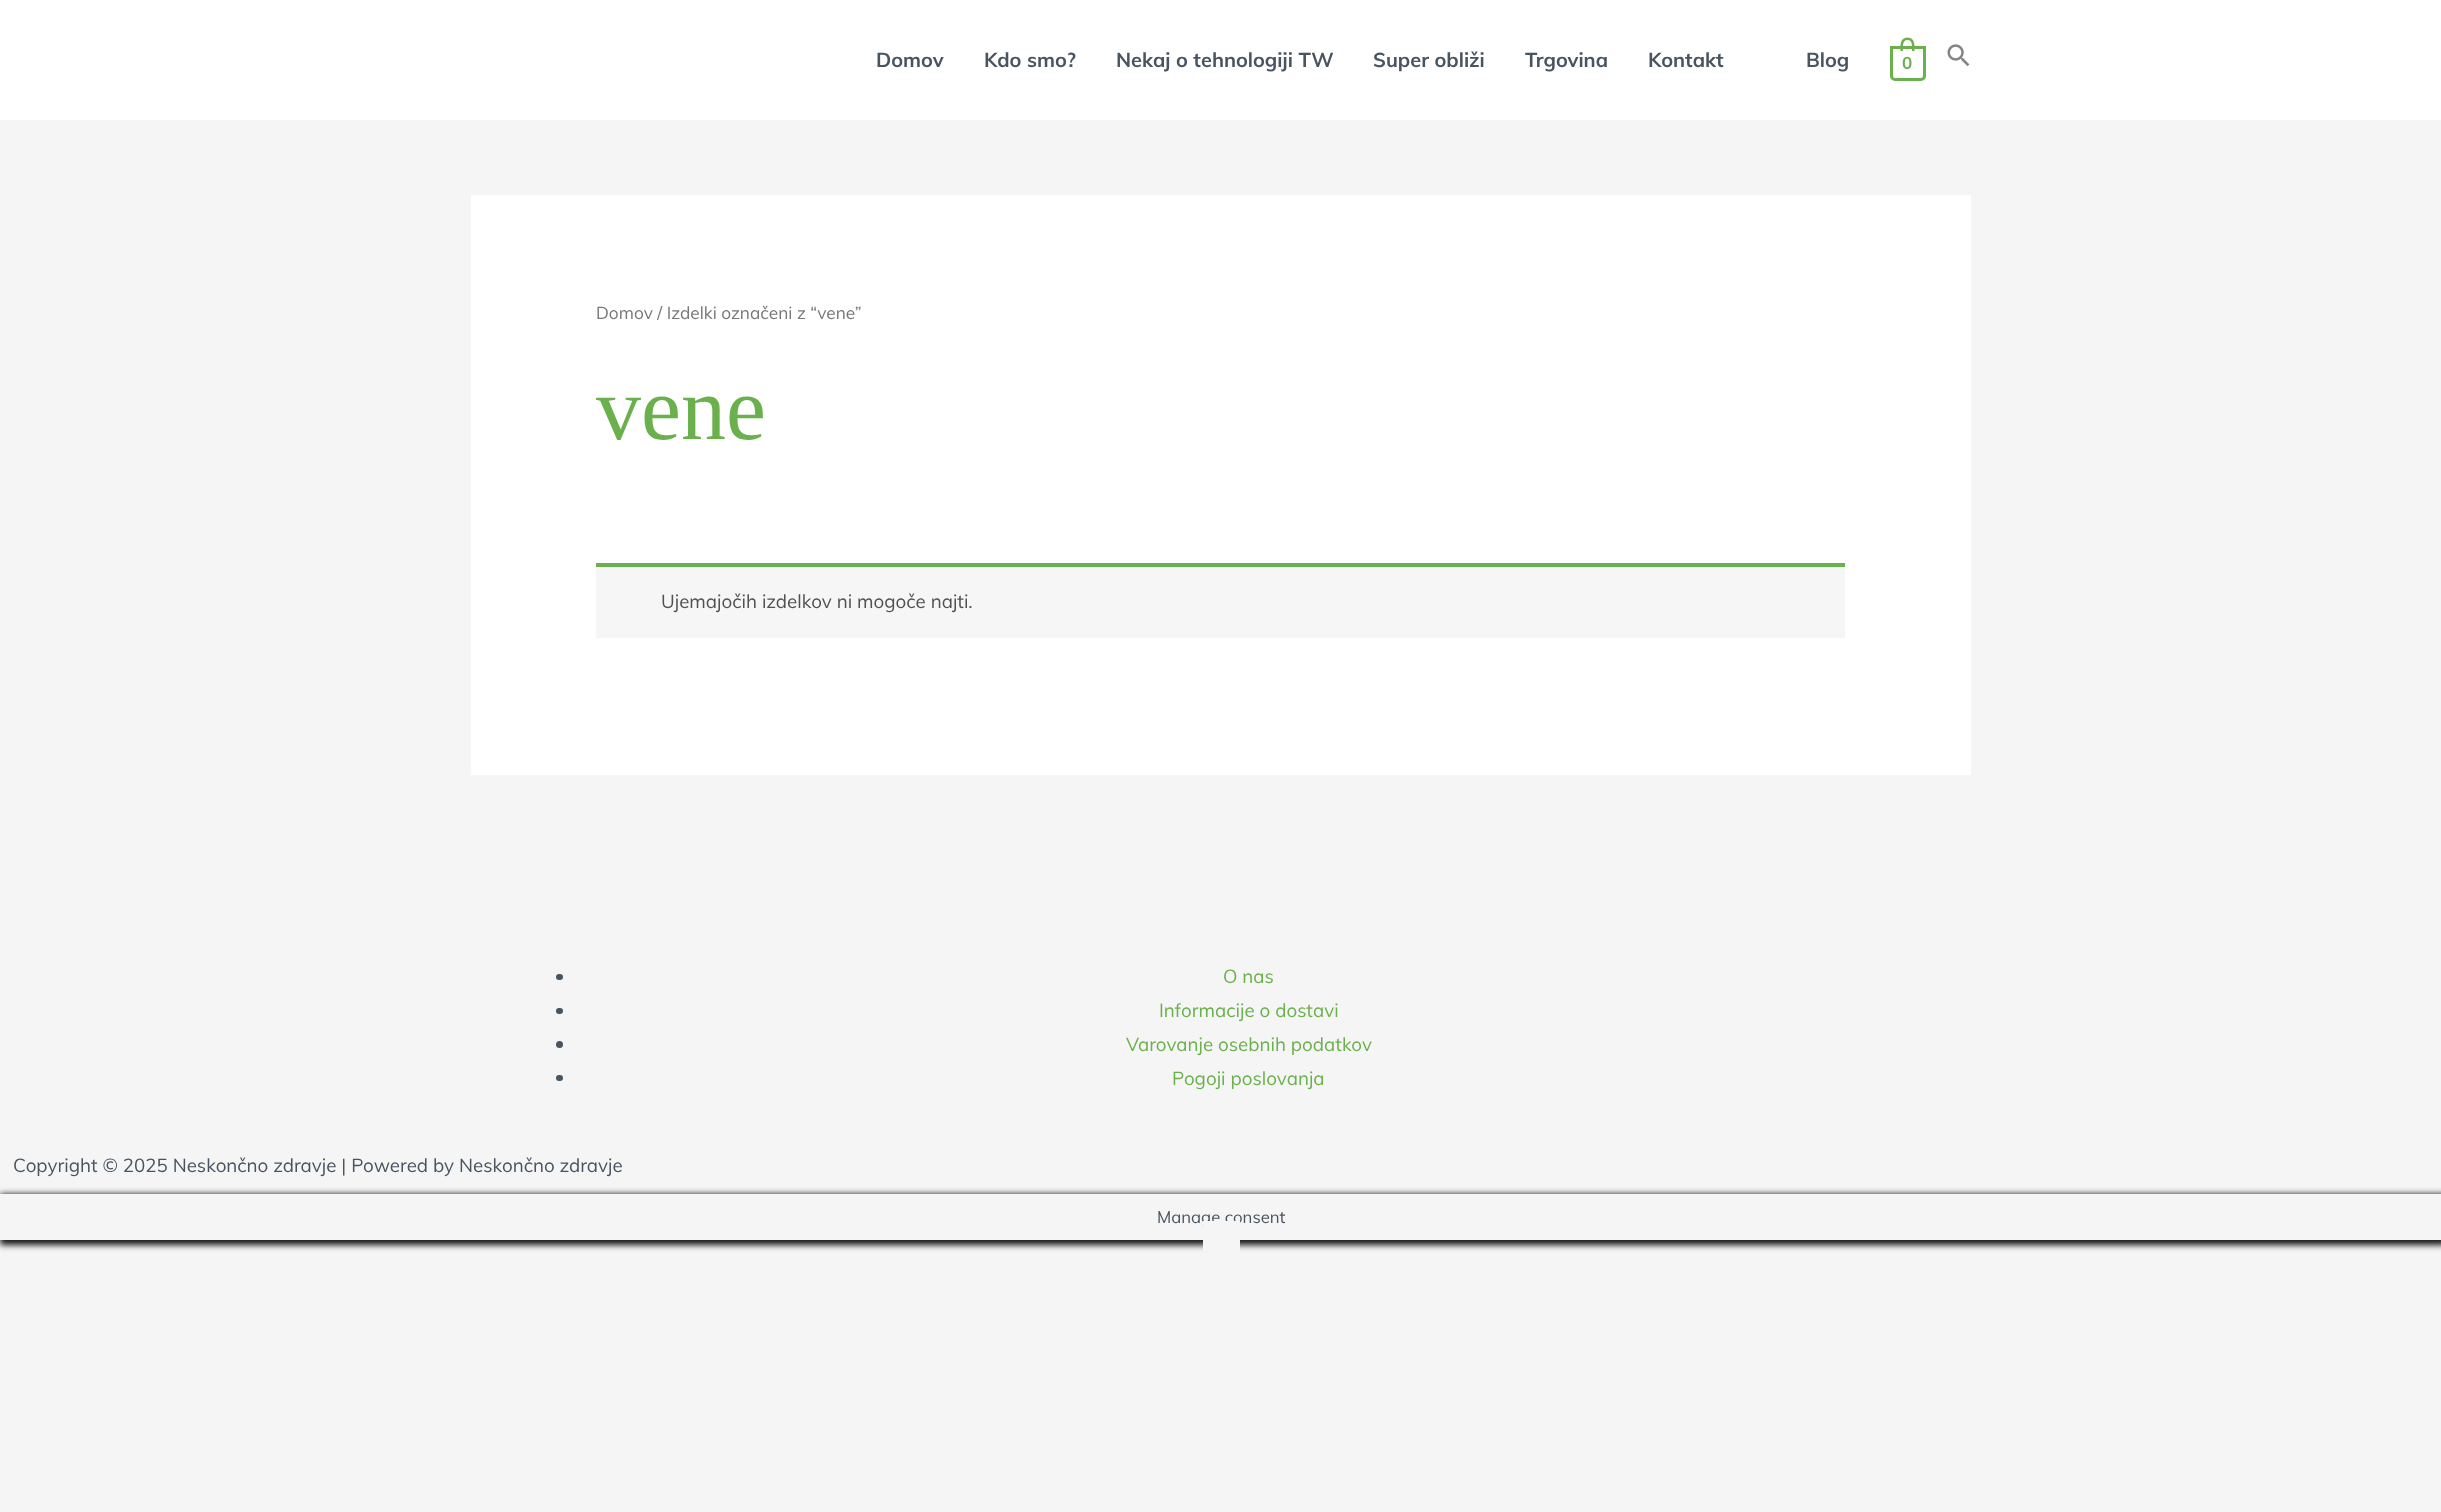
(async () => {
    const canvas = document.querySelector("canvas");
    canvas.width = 2441;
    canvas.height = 1512;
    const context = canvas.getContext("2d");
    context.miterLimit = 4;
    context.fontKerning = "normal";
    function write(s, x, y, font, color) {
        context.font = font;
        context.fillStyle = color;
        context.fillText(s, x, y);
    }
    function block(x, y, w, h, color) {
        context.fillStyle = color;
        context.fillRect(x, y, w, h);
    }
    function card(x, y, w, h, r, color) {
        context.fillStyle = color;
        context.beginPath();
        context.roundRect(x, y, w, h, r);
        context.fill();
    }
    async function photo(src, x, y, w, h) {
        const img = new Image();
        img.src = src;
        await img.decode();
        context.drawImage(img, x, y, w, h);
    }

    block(0, 0, 2441, 1512, "rgb(245, 245, 245)");
    block(0, 0, 2441, 120, "rgb(255, 255, 255)");
    write("Domov", 876, 67, "bold 20px Muli", "rgb(72, 84, 96)");
    write("Kdo smo?", 984, 67, "bold 20px Muli", "rgb(72, 84, 96)");
    write("Nekaj o tehnologiji TW", 1116, 67, "bold 20px Muli", "rgb(72, 84, 96)");
    write("Super obliži", 1373, 67, "bold 20px Muli", "rgb(72, 84, 96)");
    write("Trgovina", 1525, 67, "bold 20px Muli", "rgb(72, 84, 96)");
    write("Kontakt", 1648, 67, "bold 20px Muli", "rgb(72, 84, 96)");
    write("Blog", 1806, 67, "bold 20px Muli", "rgb(72, 84, 96)");
    context.beginPath();
    context.roundRect(1891.5, 47.5, 33, 32, [0, 0, 3.5, 3.5]);
    context.strokeStyle = "rgb(106, 176, 76)";
    context.lineWidth = 3;
    context.stroke();
    context.fillStyle = "rgb(106, 176, 76)";
    context.beginPath();
    context.moveTo(1907.5, 37.5);
    context.bezierCurveTo(1915.5, 37.5, 1914.5, 46, 1914.5, 51);
    context.lineTo(1900.5, 51);
    context.bezierCurveTo(1900.5, 46, 1899.5, 37.5, 1907.5, 37.5);
    context.closePath();
    context.moveTo(1907.5, 40);
    context.bezierCurveTo(1913, 40, 1912, 47.5, 1912, 51);
    context.lineTo(1903, 51);
    context.bezierCurveTo(1903, 47.5, 1902, 40, 1907.5, 40);
    context.closePath();
    context.fill("evenodd");
    write("0", 1902, 69, "bold 17px Muli", "rgb(106, 176, 76)");
    await photo("media/1.png", 1947, 44, 23, 23);
    block(471, 195, 1500, 580, "rgb(255, 255, 255)");
    write("Domov / Izdelki označeni z “vene”", 596, 319, "17.25px Muli", "rgb(119, 119, 119)");
    write("vene", 596, 439, "90px Liberation Serif", "rgb(106, 176, 76)");
    block(596, 567, 1249, 71, "rgb(247, 246, 247)");
    block(596, 563, 1249, 4, "rgb(106, 176, 76)");
    write("Ujemajočih izdelkov ni mogoče najti.", 661, 608, "18.75px Muli", "rgb(81, 81, 81)");
    card(556, 974, 7, 6, 3, "rgb(72, 84, 96)");
    write("O nas", 1223, 983, "18.75px Muli", "rgb(106, 176, 76)");
    card(556, 1008, 7, 6, 3, "rgb(72, 84, 96)");
    write("Informacije o dostavi", 1159, 1017, "18.75px Muli", "rgb(106, 176, 76)");
    context.fillStyle = "rgb(72, 84, 96)";
    context.beginPath();
    context.arc(559.5, 1044.5, 3.5, 0, Math.PI * 2);
    context.fill();
    write("Varovanje osebnih podatkov", 1126, 1051, "18.75px Muli", "rgb(106, 176, 76)");
    card(556, 1075, 7, 6, 3, "rgb(72, 84, 96)");
    write("Pogoji poslovanja", 1172, 1085, "18.75px Muli", "rgb(106, 176, 76)");
    write("Copyright © 2025 Neskončno zdravje | Powered by Neskončno zdravje", 13, 1172, "18.75px Muli", "rgb(72, 84, 96)");
    context.save();
    context.beginPath();
    context.moveTo(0, 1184);
    context.lineTo(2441, 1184);
    context.lineTo(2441, 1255);
    context.lineTo(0, 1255);
    context.closePath();
    context.moveTo(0, 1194);
    context.lineTo(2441, 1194);
    context.lineTo(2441, 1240);
    context.lineTo(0, 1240);
    context.closePath();
    context.clip("evenodd");
    context.fillStyle = "rgb(22, 22, 22)";
    context.filter = "blur(3px)";
    context.beginPath();
    context.rect(0, 1194, 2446, 51);
    context.fill();
    context.filter = "none";
    context.restore();
    write("Manage consent", 1157, 1223, "16.75px Muli", "rgb(72, 84, 96)");
    block(1203, 1221, 37, 31, "rgb(245, 245, 245)");
})();
